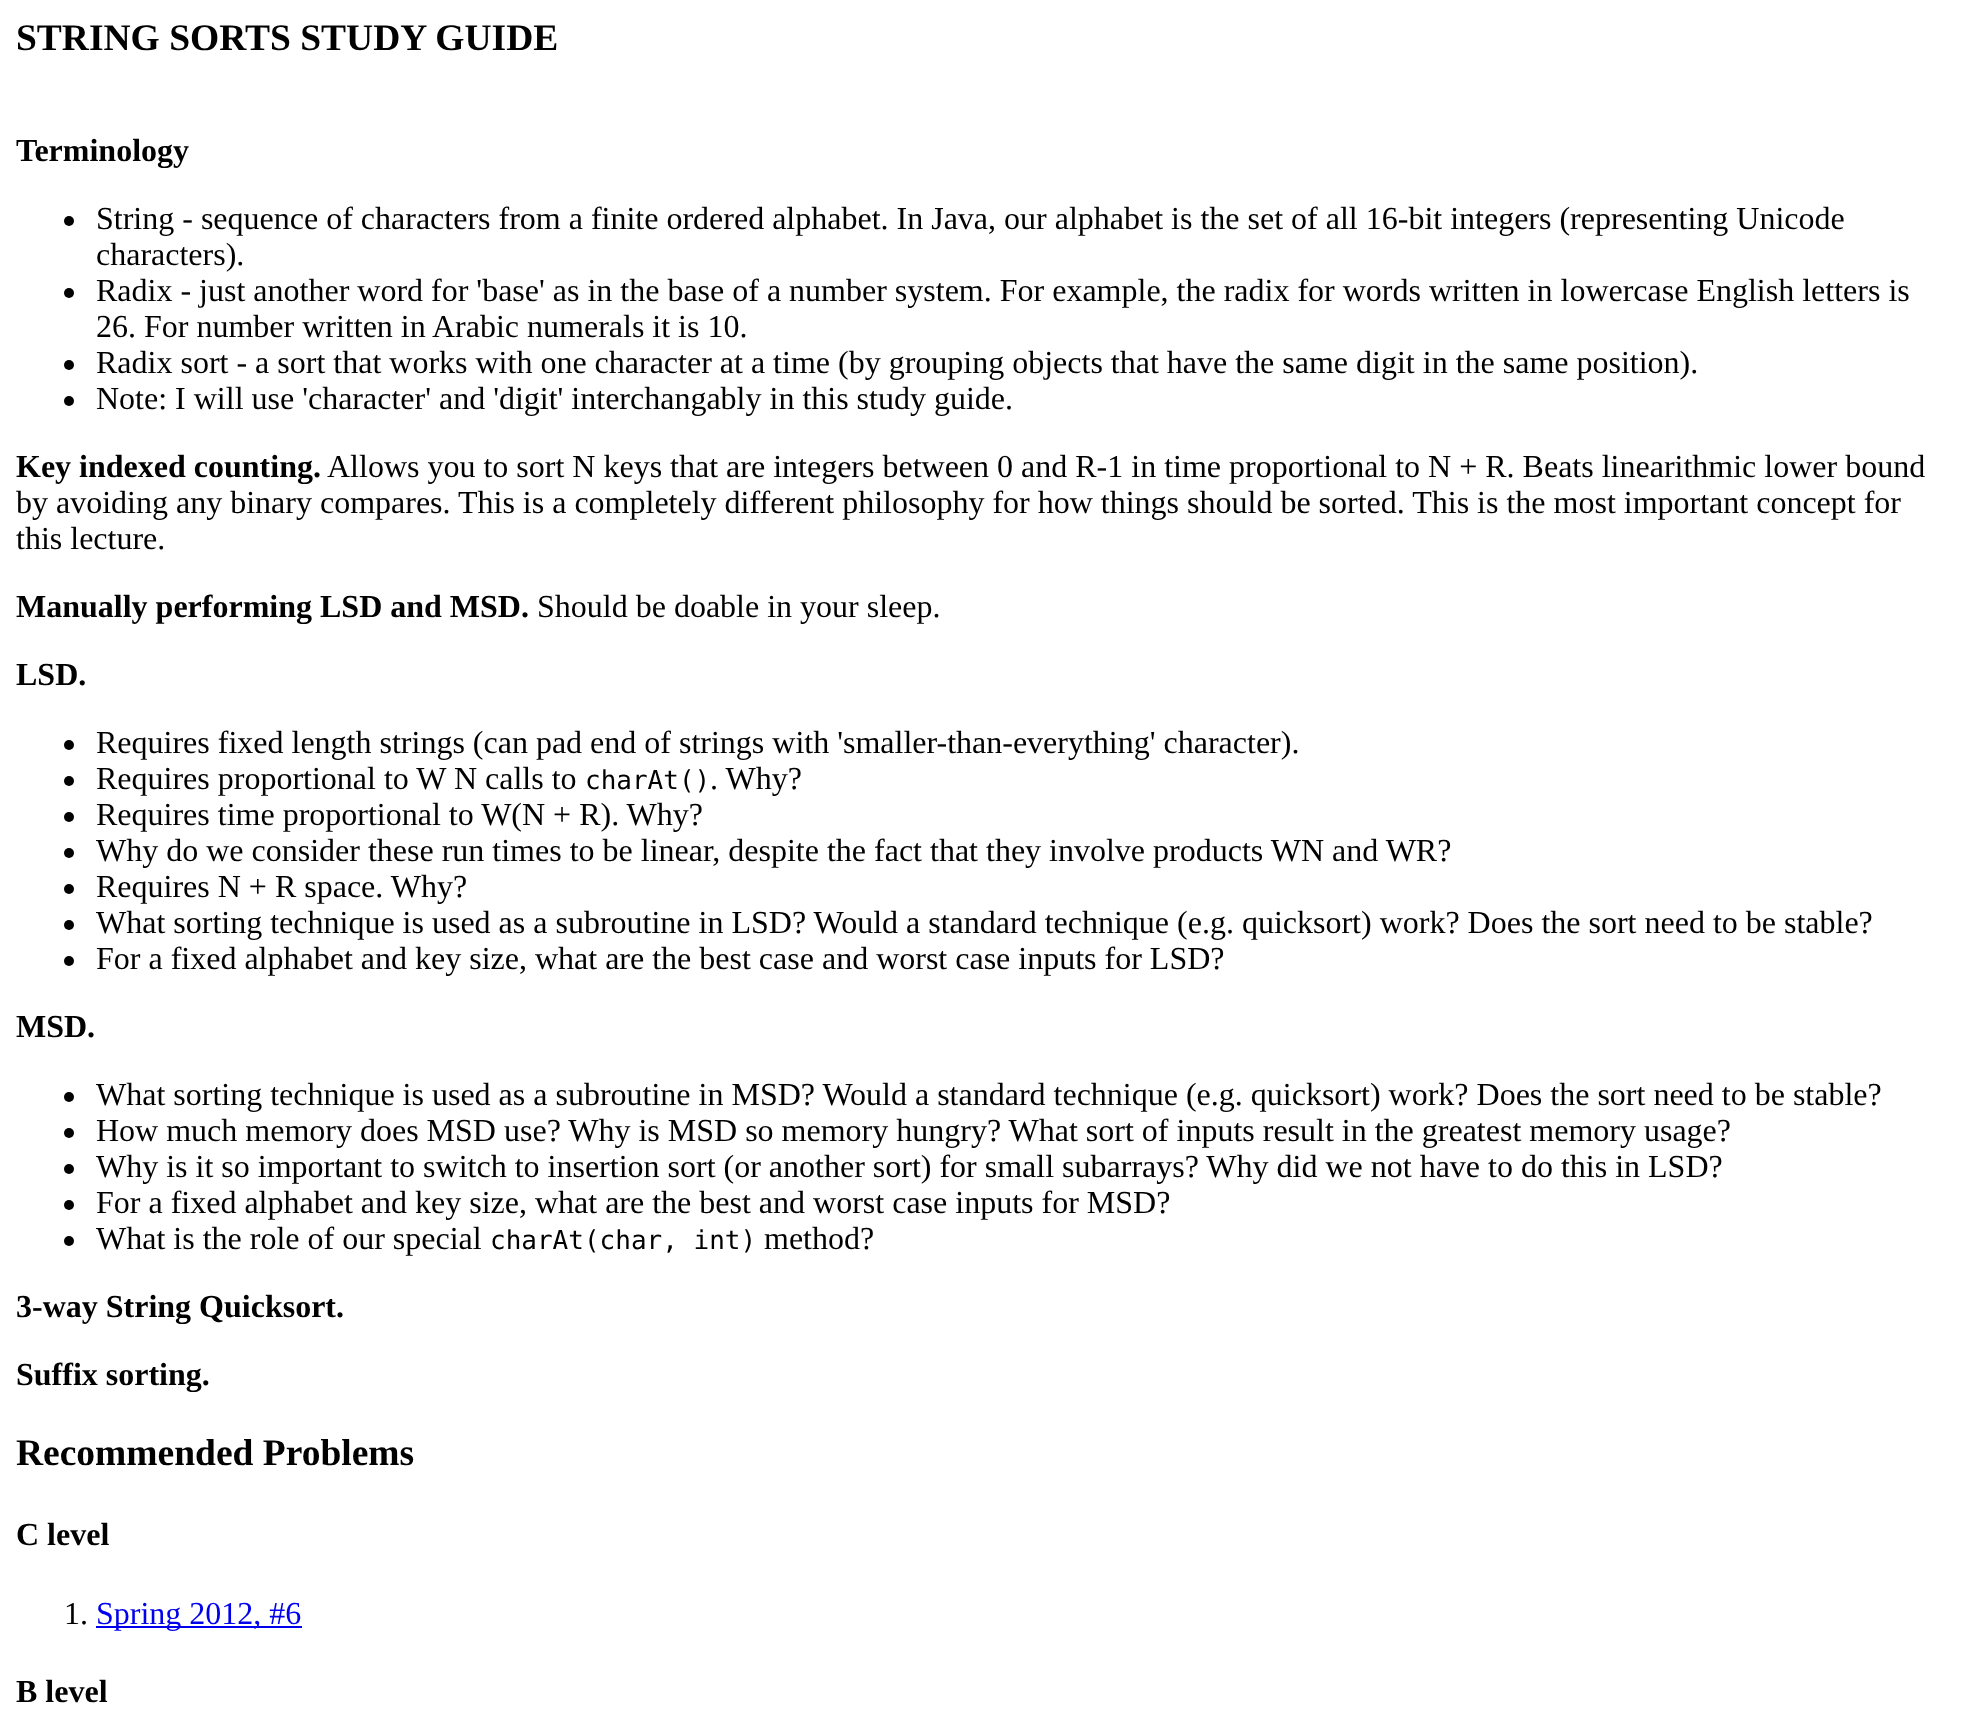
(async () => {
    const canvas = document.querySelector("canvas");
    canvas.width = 1968;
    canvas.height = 1718;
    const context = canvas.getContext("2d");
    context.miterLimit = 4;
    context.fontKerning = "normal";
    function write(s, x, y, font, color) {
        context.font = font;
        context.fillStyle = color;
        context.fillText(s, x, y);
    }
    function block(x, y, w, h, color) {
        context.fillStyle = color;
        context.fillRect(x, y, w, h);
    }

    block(0, 0, 1968, 1718, "rgb(255, 255, 255)");
    write("STRING SORTS STUDY GUIDE", 16, 50, "bold 37.5px Liberation Serif", "rgb(0, 0, 0)");
    write("Terminology", 16, 161, "bold 32px Liberation Serif", "rgb(0, 0, 0)");
    context.beginPath();
    context.arc(69, 221, 5, 0, Math.PI * 2);
    context.fill();
    write("String - sequence of characters from a finite ordered alphabet. In Java, our alphabet is the set of all 16-bit integers (representing Unicode", 96, 229, "32px Liberation Serif", "rgb(0, 0, 0)");
    write("characters).", 96, 265, "32px Liberation Serif", "rgb(0, 0, 0)");
    context.beginPath();
    context.arc(69, 293, 5, 0, Math.PI * 2);
    context.fill();
    write("Radix - just another word for 'base' as in the base of a number system. For example, the radix for words written in lowercase English letters is", 96, 301, "32px Liberation Serif", "rgb(0, 0, 0)");
    write("26. For number written in Arabic numerals it is 10.", 96, 337, "32px Liberation Serif", "rgb(0, 0, 0)");
    context.beginPath();
    context.arc(69, 365, 5, 0, Math.PI * 2);
    context.fill();
    write("Radix sort - a sort that works with one character at a time (by grouping objects that have the same digit in the same position).", 96, 373, "32px Liberation Serif", "rgb(0, 0, 0)");
    context.beginPath();
    context.arc(69, 401, 5, 0, Math.PI * 2);
    context.fill();
    write("Note: I will use 'character' and 'digit' interchangably in this study guide.", 96, 409, "32px Liberation Serif", "rgb(0, 0, 0)");
    write("Key indexed counting.", 16, 477, "bold 32px Liberation Serif", "rgb(0, 0, 0)");
    write("Allows you to sort N keys that are integers between 0 and R-1 in time proportional to N + R. Beats linearithmic lower bound", 327, 477, "32px Liberation Serif", "rgb(0, 0, 0)");
    write("by avoiding any binary compares. This is a completely different philosophy for how things should be sorted. This is the most important concept for", 16, 513, "32px Liberation Serif", "rgb(0, 0, 0)");
    write("this lecture.", 16, 549, "32px Liberation Serif", "rgb(0, 0, 0)");
    write("Manually performing LSD and MSD.", 16, 617, "bold 32px Liberation Serif", "rgb(0, 0, 0)");
    write("Should be doable in your sleep.", 537, 617, "32px Liberation Serif", "rgb(0, 0, 0)");
    write("LSD.", 16, 685, "bold 32px Liberation Serif", "rgb(0, 0, 0)");
    context.beginPath();
    context.arc(69, 745, 5, 0, Math.PI * 2);
    context.fill();
    write("Requires fixed length strings (can pad end of strings with 'smaller-than-everything' character).", 96, 753, "32px Liberation Serif", "rgb(0, 0, 0)");
    context.beginPath();
    context.arc(69, 781, 5, 0, Math.PI * 2);
    context.fill();
    write("Requires proportional to W N calls to", 96, 789, "32px Liberation Serif", "rgb(0, 0, 0)");
    write("charAt()", 585, 789, "26px DejaVu Sans Mono", "rgb(0, 0, 0)");
    write(". Why?", 710, 789, "32px Liberation Serif", "rgb(0, 0, 0)");
    context.beginPath();
    context.arc(69, 817, 5, 0, Math.PI * 2);
    context.fill();
    write("Requires time proportional to W(N + R). Why?", 96, 825, "32px Liberation Serif", "rgb(0, 0, 0)");
    context.beginPath();
    context.arc(69, 853, 5, 0, Math.PI * 2);
    context.fill();
    write("Why do we consider these run times to be linear, despite the fact that they involve products WN and WR?", 96, 861, "32px Liberation Serif", "rgb(0, 0, 0)");
    context.beginPath();
    context.arc(69, 889, 5, 0, Math.PI * 2);
    context.fill();
    write("Requires N + R space. Why?", 96, 897, "32px Liberation Serif", "rgb(0, 0, 0)");
    context.beginPath();
    context.arc(69, 925, 5, 0, Math.PI * 2);
    context.fill();
    write("What sorting technique is used as a subroutine in LSD? Would a standard technique (e.g. quicksort) work? Does the sort need to be stable?", 96, 933, "32px Liberation Serif", "rgb(0, 0, 0)");
    context.beginPath();
    context.arc(69, 961, 5, 0, Math.PI * 2);
    context.fill();
    write("For a fixed alphabet and key size, what are the best case and worst case inputs for LSD?", 96, 969, "32px Liberation Serif", "rgb(0, 0, 0)");
    write("MSD.", 16, 1037, "bold 32px Liberation Serif", "rgb(0, 0, 0)");
    context.beginPath();
    context.arc(69, 1097, 5, 0, Math.PI * 2);
    context.fill();
    write("What sorting technique is used as a subroutine in MSD? Would a standard technique (e.g. quicksort) work? Does the sort need to be stable?", 96, 1105, "32px Liberation Serif", "rgb(0, 0, 0)");
    context.beginPath();
    context.arc(69, 1133, 5, 0, Math.PI * 2);
    context.fill();
    write("How much memory does MSD use? Why is MSD so memory hungry? What sort of inputs result in the greatest memory usage?", 96, 1141, "32px Liberation Serif", "rgb(0, 0, 0)");
    context.beginPath();
    context.arc(69, 1169, 5, 0, Math.PI * 2);
    context.fill();
    write("Why is it so important to switch to insertion sort (or another sort) for small subarrays? Why did we not have to do this in LSD?", 96, 1177, "32px Liberation Serif", "rgb(0, 0, 0)");
    context.beginPath();
    context.arc(69, 1205, 5, 0, Math.PI * 2);
    context.fill();
    write("For a fixed alphabet and key size, what are the best and worst case inputs for MSD?", 96, 1213, "32px Liberation Serif", "rgb(0, 0, 0)");
    context.beginPath();
    context.arc(69, 1241, 5, 0, Math.PI * 2);
    context.fill();
    write("What is the role of our special", 96, 1249, "32px Liberation Serif", "rgb(0, 0, 0)");
    write("charAt(char, int)", 490, 1249, "26px DejaVu Sans Mono", "rgb(0, 0, 0)");
    write("method?", 764, 1249, "32px Liberation Serif", "rgb(0, 0, 0)");
    write("3-way String Quicksort.", 16, 1317, "bold 32px Liberation Serif", "rgb(0, 0, 0)");
    write("Suffix sorting.", 16, 1385, "bold 32px Liberation Serif", "rgb(0, 0, 0)");
    write("Recommended Problems", 16, 1465, "bold 37.5px Liberation Serif", "rgb(0, 0, 0)");
    write("C level", 16, 1545, "bold 32px Liberation Serif", "rgb(0, 0, 0)");
    write("1.", 64, 1624, "32px Liberation Serif", "rgb(0, 0, 0)");
    block(96, 1626, 206, 2, "rgb(0, 0, 238)");
    write("Spring 2012, #6", 96, 1624, "32px Liberation Serif", "rgb(0, 0, 238)");
    write("B level", 16, 1702, "bold 32px Liberation Serif", "rgb(0, 0, 0)");
})();
